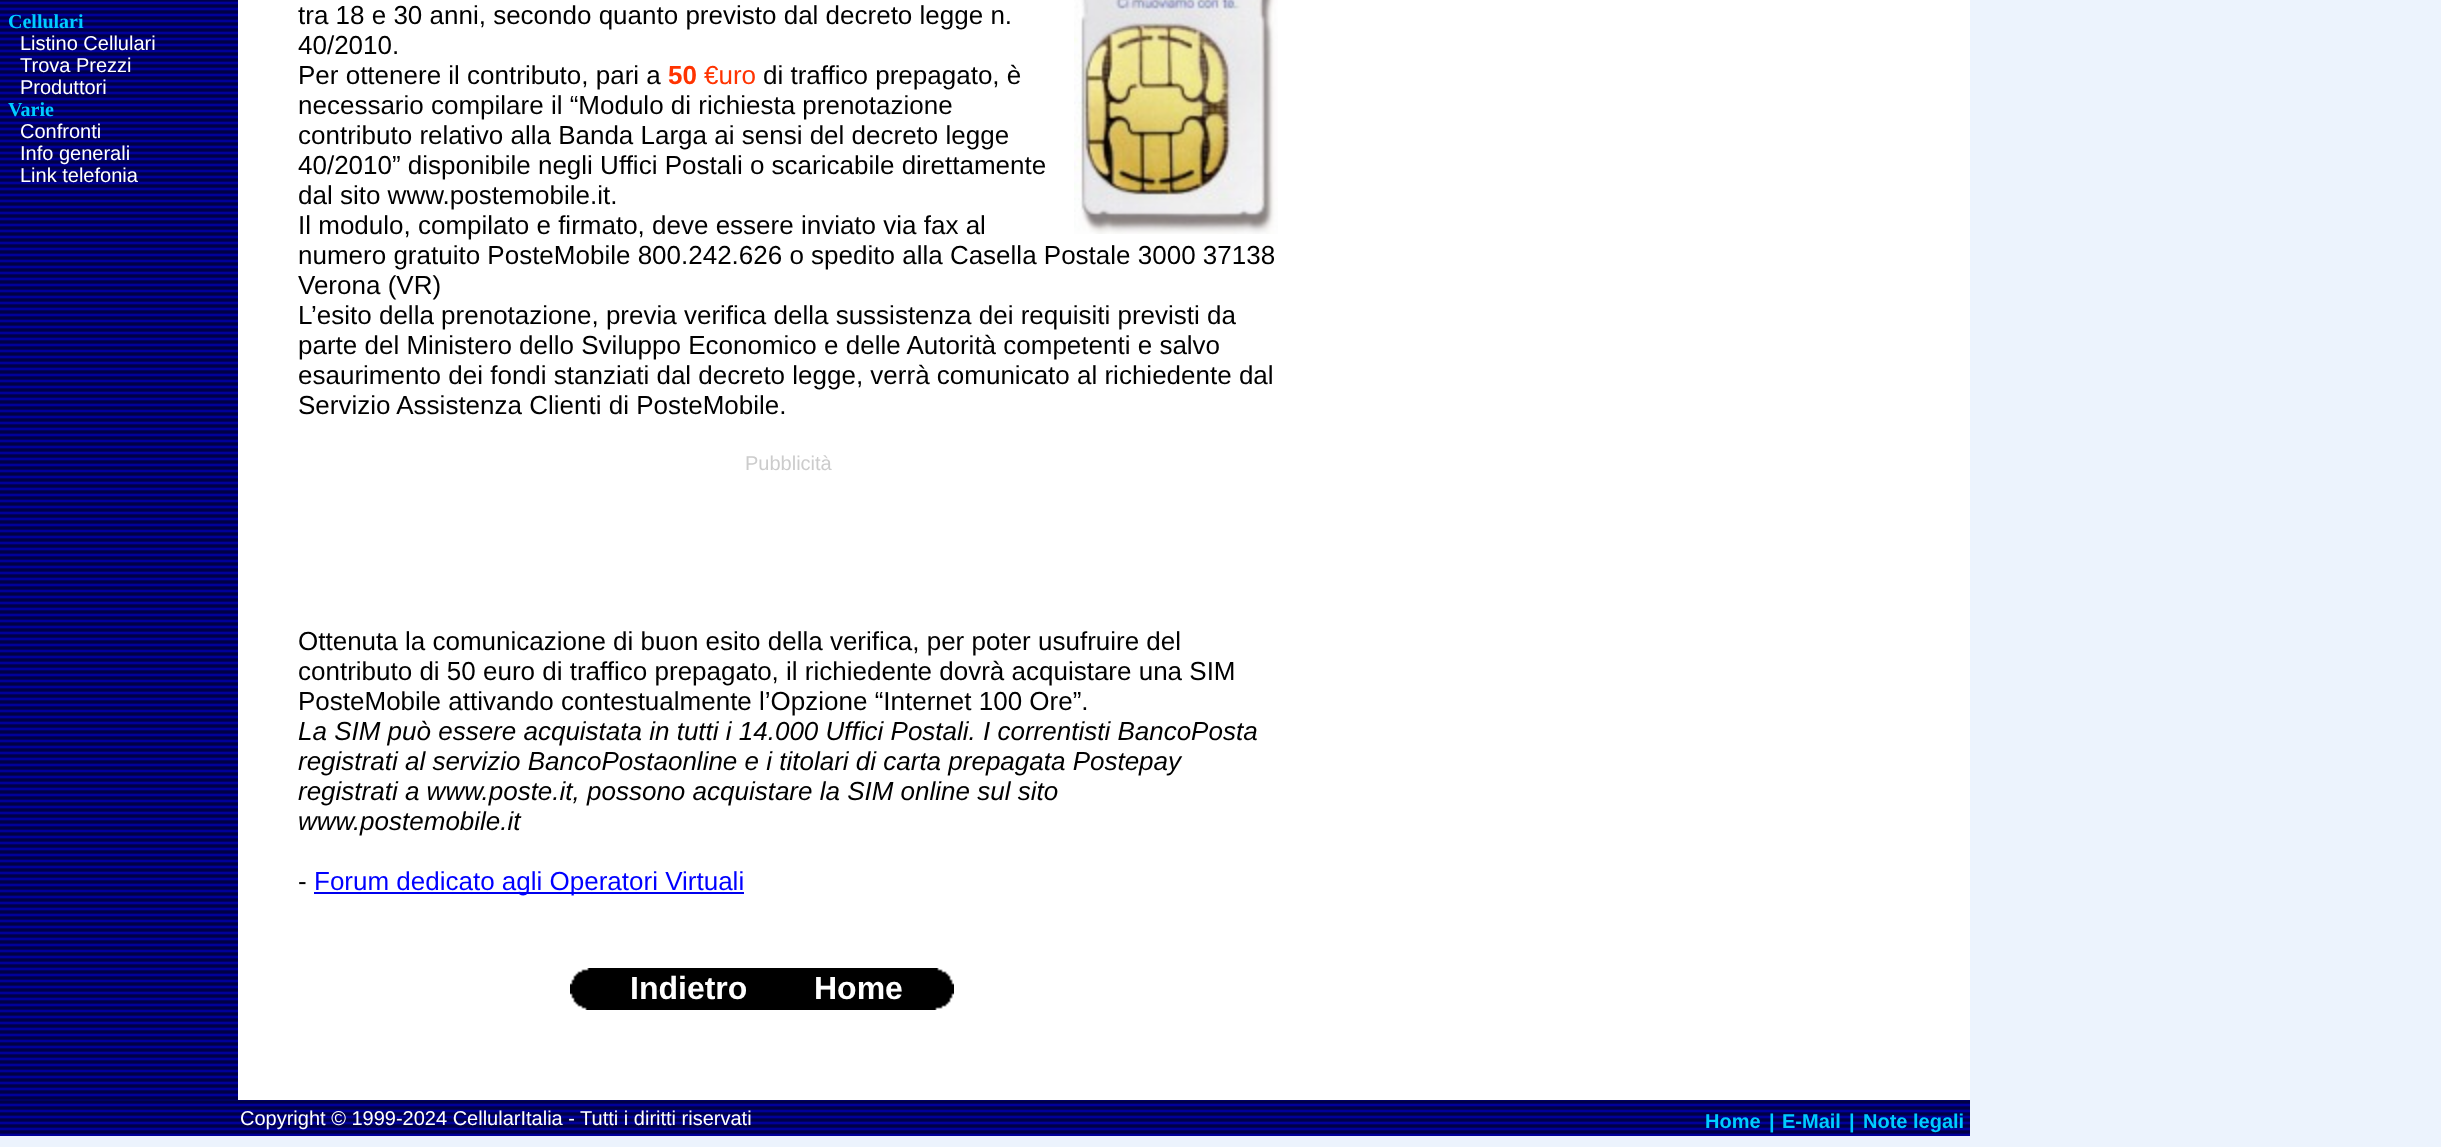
(async () => {
    const canvas = document.querySelector("canvas");
    canvas.width = 2441;
    canvas.height = 1147;
    const context = canvas.getContext("2d");
    context.miterLimit = 4;
    context.fontKerning = "normal";
    function write(s, x, y, font, color) {
        context.font = font;
        context.fillStyle = color;
        context.fillText(s, x, y);
    }
    function block(x, y, w, h, color) {
        context.fillStyle = color;
        context.fillRect(x, y, w, h);
    }
    async function photo(src, x, y, w, h) {
        const img = new Image();
        img.src = src;
        await img.decode();
        context.drawImage(img, x, y, w, h);
    }

    block(0, 0, 2441, 1147, "rgb(236, 243, 253)");
    block(238, 0, 1732, 1100, "rgb(255, 255, 255)");
    await photo("media/1.png", 0, 0, 238, 1100);
    write("Cellulari", 8, 28, "bold 20px Liberation Serif", "rgb(0, 204, 255)");
    write("Listino Cellulari", 20, 50, "20px Liberation Sans", "rgb(255, 255, 255)");
    write("Trova Prezzi", 20, 72, "20px Liberation Sans", "rgb(255, 255, 255)");
    write("Produttori", 20, 94, "20px Liberation Sans", "rgb(255, 255, 255)");
    write("Varie", 8, 116, "bold 20px Liberation Serif", "rgb(0, 204, 255)");
    write("Confronti", 20, 138, "20px Liberation Sans", "rgb(255, 255, 255)");
    write("Info generali", 20, 160, "20px Liberation Sans", "rgb(255, 255, 255)");
    write("Link telefonia", 20, 182, "20px Liberation Sans", "rgb(255, 255, 255)");
    write("tra 18 e 30 anni, secondo quanto previsto dal decreto legge n.", 298, 24, "26px Liberation Sans", "rgb(0, 0, 0)");
    await photo("media/2.png", 1074, 0, 204, 234);
    write("40/2010.", 298, 54, "26px Liberation Sans", "rgb(0, 0, 0)");
    write("Per ottenere il contributo, pari a", 298, 84, "26px Liberation Sans", "rgb(0, 0, 0)");
    write("50", 668, 84, "bold 26px Liberation Sans", "rgb(255, 51, 0)");
    write("€uro", 704, 84, "26px Liberation Sans", "rgb(255, 51, 0)");
    write("di traffico prepagato, è", 763, 84, "26px Liberation Sans", "rgb(0, 0, 0)");
    write("necessario compilare il “Modulo di richiesta prenotazione", 298, 114, "26px Liberation Sans", "rgb(0, 0, 0)");
    write("contributo relativo alla Banda Larga ai sensi del decreto legge", 298, 144, "26px Liberation Sans", "rgb(0, 0, 0)");
    write("40/2010” disponibile negli Uffici Postali o scaricabile direttamente", 298, 174, "26px Liberation Sans", "rgb(0, 0, 0)");
    write("dal sito www.postemobile.it.", 298, 204, "26px Liberation Sans", "rgb(0, 0, 0)");
    write("Il modulo, compilato e firmato, deve essere inviato via fax al", 298, 234, "26px Liberation Sans", "rgb(0, 0, 0)");
    write("numero gratuito PosteMobile 800.242.626 o spedito alla Casella Postale 3000 37138", 298, 264, "26px Liberation Sans", "rgb(0, 0, 0)");
    write("Verona (VR)", 298, 294, "26px Liberation Sans", "rgb(0, 0, 0)");
    write("L’esito della prenotazione, previa verifica della sussistenza dei requisiti previsti da", 298, 324, "26px Liberation Sans", "rgb(0, 0, 0)");
    write("parte del Ministero dello Sviluppo Economico e delle Autorità competenti e salvo", 298, 354, "26px Liberation Sans", "rgb(0, 0, 0)");
    write("esaurimento dei fondi stanziati dal decreto legge, verrà comunicato al richiedente dal", 298, 384, "26px Liberation Sans", "rgb(0, 0, 0)");
    write("Servizio Assistenza Clienti di PosteMobile.", 298, 414, "26px Liberation Sans", "rgb(0, 0, 0)");
    write("Pubblicità", 745, 470, "20px Liberation Sans", "rgb(204, 204, 204)");
    write("Ottenuta la comunicazione di buon esito della verifica, per poter usufruire del", 298, 650, "26px Liberation Sans", "rgb(0, 0, 0)");
    write("contributo di 50 euro di traffico prepagato, il richiedente dovrà acquistare una SIM", 298, 680, "26px Liberation Sans", "rgb(0, 0, 0)");
    write("PosteMobile attivando contestualmente l’Opzione “Internet 100 Ore”.", 298, 710, "26px Liberation Sans", "rgb(0, 0, 0)");
    write("La SIM può essere acquistata in tutti i 14.000 Uffici Postali. I correntisti BancoPosta", 298, 740, "italic 26px Liberation Sans", "rgb(0, 0, 0)");
    write("registrati al servizio BancoPostaonline e i titolari di carta prepagata Postepay", 298, 770, "italic 26px Liberation Sans", "rgb(0, 0, 0)");
    write("registrati a www.poste.it, possono acquistare la SIM online sul sito", 298, 800, "italic 26px Liberation Sans", "rgb(0, 0, 0)");
    write("www.postemobile.it", 298, 830, "italic 26px Liberation Sans", "rgb(0, 0, 0)");
    write("-", 298, 890, "26px Liberation Sans", "rgb(0, 0, 0)");
    block(314, 892, 430, 2, "rgb(0, 0, 238)");
    write("Forum dedicato agli Operatori Virtuali", 314, 890, "26px Liberation Sans", "rgb(0, 0, 255)");
    await photo("media/3.png", 570, 968, 22, 42);
    block(592, 968, 340, 42, "rgb(0, 0, 0)");
    write("Indietro", 630, 999, "bold 32px Liberation Sans", "rgb(255, 255, 255)");
    write("Home", 814, 999, "bold 32px Liberation Sans", "rgb(255, 255, 255)");
    await photo("media/4.png", 932, 968, 22, 42);
    await photo("media/5.png", 0, 1100, 1470, 36);
    write("Copyright © 1999-2024 CellularItalia - Tutti i diritti riservati", 240, 1125, "20px Liberation Sans", "rgb(255, 255, 255)");
    await photo("media/6.png", 1470, 1100, 500, 36);
    write("Home", 1705, 1128, "bold 20px Liberation Sans", "rgb(0, 204, 255)");
    write("|", 1769, 1128, "bold 20px Liberation Sans", "rgb(0, 204, 255)");
    write("E-Mail", 1782, 1128, "bold 20px Liberation Sans", "rgb(0, 204, 255)");
    write("|", 1849, 1128, "bold 20px Liberation Sans", "rgb(0, 204, 255)");
    write("Note legali", 1863, 1128, "bold 20px Liberation Sans", "rgb(0, 204, 255)");
})();
